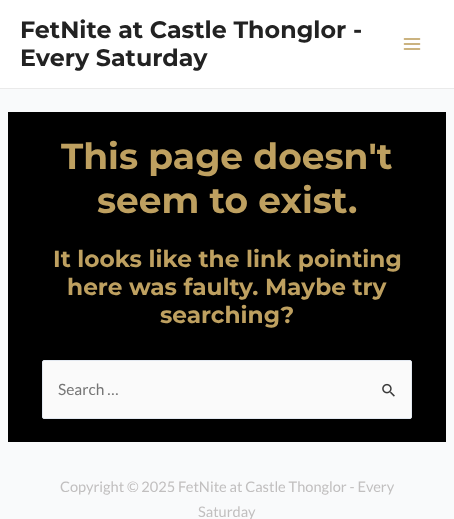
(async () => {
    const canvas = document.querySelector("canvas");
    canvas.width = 454;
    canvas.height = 519;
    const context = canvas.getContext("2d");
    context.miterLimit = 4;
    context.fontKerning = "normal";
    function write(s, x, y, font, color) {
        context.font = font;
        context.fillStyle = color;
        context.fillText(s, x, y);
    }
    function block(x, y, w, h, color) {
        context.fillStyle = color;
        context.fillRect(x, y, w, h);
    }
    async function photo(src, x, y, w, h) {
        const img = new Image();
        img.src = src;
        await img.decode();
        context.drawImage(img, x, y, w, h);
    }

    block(0, 0, 454, 519, "rgb(249, 250, 251)");
    block(0, 0, 454, 88, "rgb(255, 255, 255)");
    block(0, 88, 454, 1, "rgb(234, 234, 234)");
    write("FetNite at Castle Thonglor -", 20, 38, "100 23.75px Montserrat", "rgb(34, 34, 34)");
    write("Every Saturday", 20, 66, "100 23.75px Montserrat", "rgb(34, 34, 34)");
    await photo("media/1.png", 403, 38, 18, 12);
    block(8, 112, 438, 330, "rgb(0, 0, 0)");
    write("This page doesn't", 61, 169, "100 36px Montserrat", "rgb(190, 160, 96)");
    write("seem to exist.", 97, 213, "100 36px Montserrat", "rgb(190, 160, 96)");
    write("It looks like the link pointing", 53, 267, "100 23.25px Montserrat", "rgb(190, 160, 96)");
    write("here was faulty. Maybe try", 67, 295, "100 23.25px Montserrat", "rgb(190, 160, 96)");
    write("searching?", 160, 323, "100 23.25px Montserrat", "rgb(190, 160, 96)");
    context.fillStyle = "rgb(250, 250, 250)";
    context.beginPath();
    context.roundRect(42.5, 360.5, 369, 58, 1.5);
    context.fill();
    context.strokeStyle = "rgb(226, 232, 240)";
    context.stroke();
    write("Search …", 58, 395, "15.5px Lato", "rgb(117, 117, 117)");
    await photo("media/2.png", 382, 383, 13, 14);
    write("Copyright © 2025 FetNite at Castle Thonglor - Every", 60, 492, "14.6px Lato", "rgb(193, 191, 191)");
    write("Saturday", 198, 517, "14.6px Lato", "rgb(193, 191, 191)");
})();
